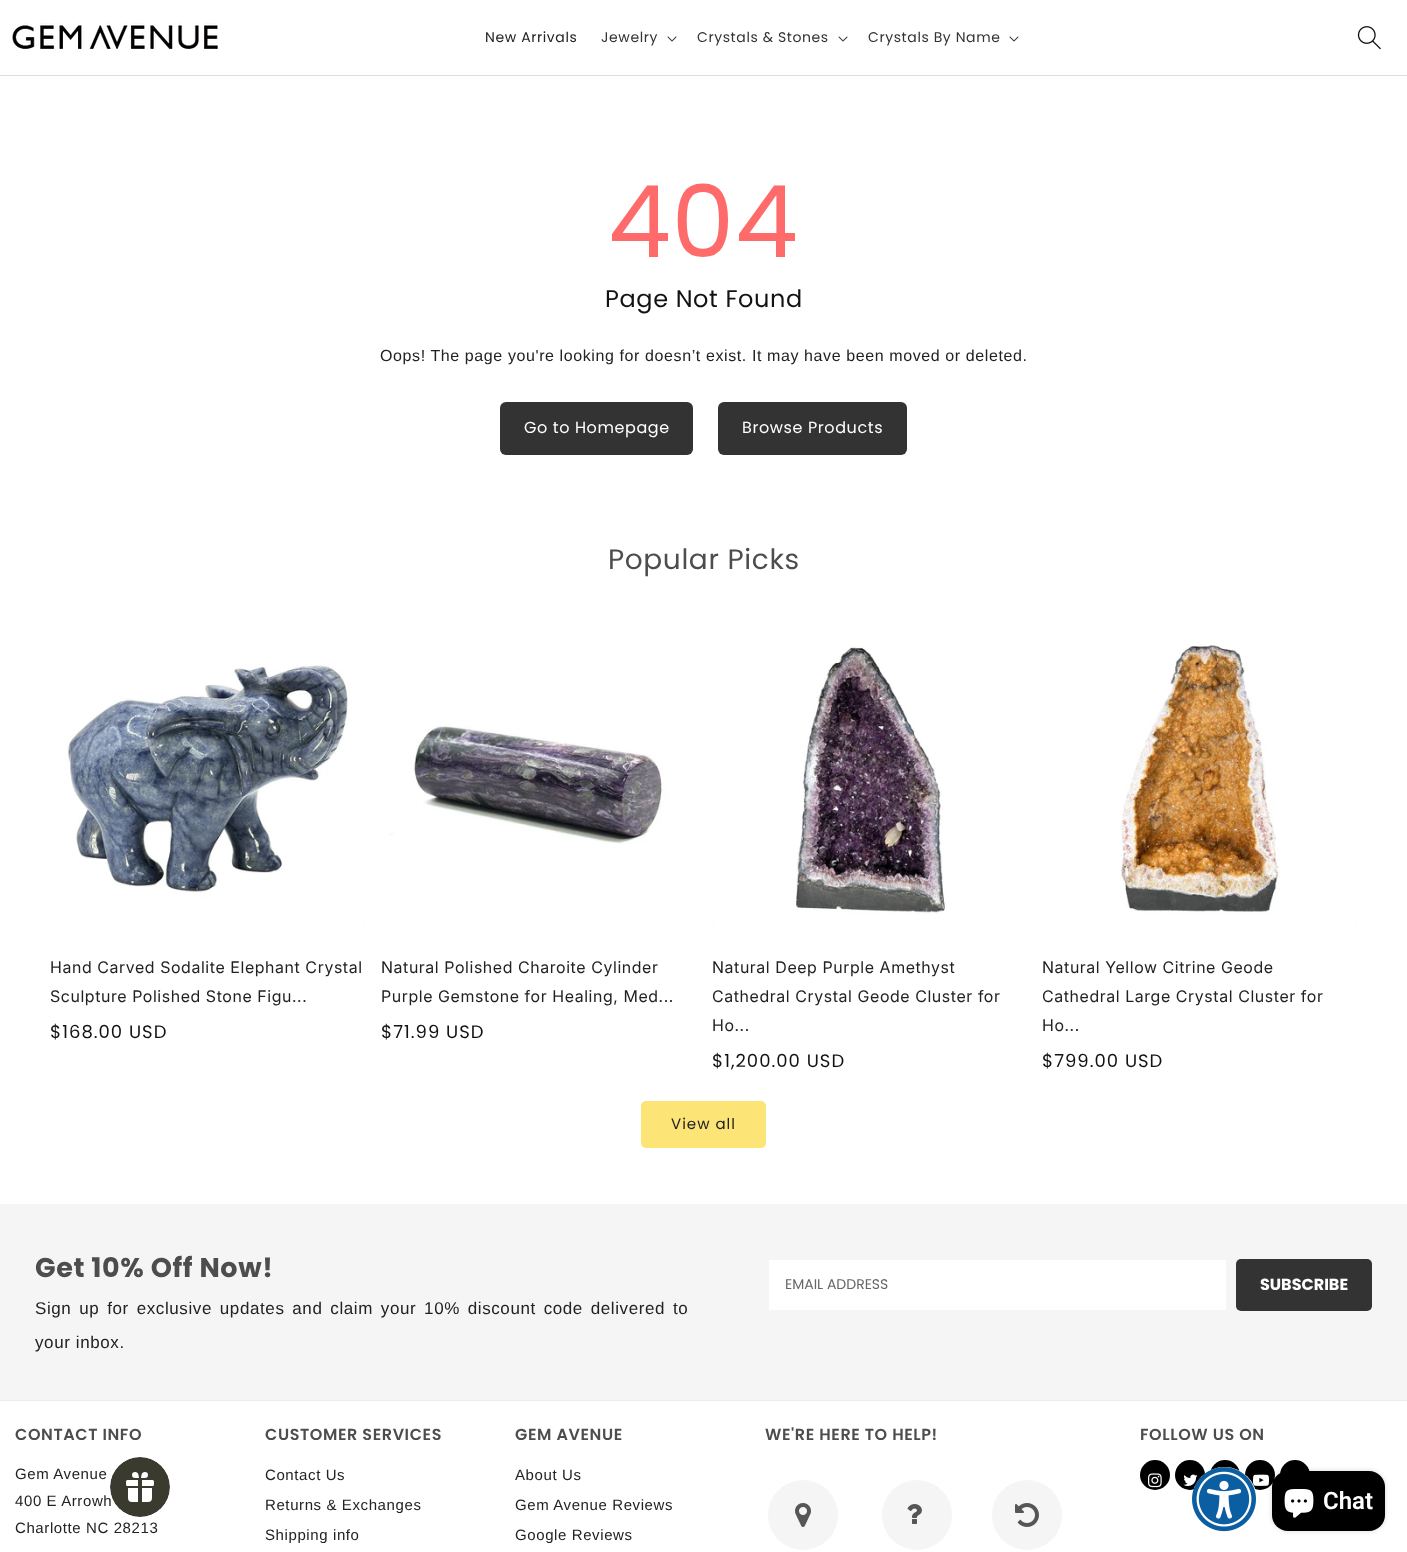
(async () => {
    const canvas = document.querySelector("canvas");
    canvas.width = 1407;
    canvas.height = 1552;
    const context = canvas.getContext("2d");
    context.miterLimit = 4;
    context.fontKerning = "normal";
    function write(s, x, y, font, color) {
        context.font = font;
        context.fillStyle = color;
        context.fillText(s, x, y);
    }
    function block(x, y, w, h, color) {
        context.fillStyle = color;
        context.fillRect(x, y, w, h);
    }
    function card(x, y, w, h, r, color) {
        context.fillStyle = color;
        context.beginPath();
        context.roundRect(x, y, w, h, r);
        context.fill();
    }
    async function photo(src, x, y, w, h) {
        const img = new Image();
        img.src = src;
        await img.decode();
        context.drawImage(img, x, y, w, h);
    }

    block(0, 0, 1407, 1552, "rgb(255, 255, 255)");
    block(0, 75, 1407, 1, "rgb(221, 221, 221)");
    await photo("media/1.png", 12, 23, 206, 26);
    context.letterSpacing = "0.6px";
    write("New Arrivals", 485, 42, "14px Poppins", "rgb(34, 34, 34)");
    write("Jewelry", 601, 42, "14px Poppins", "rgb(51, 51, 51)");
    await photo("media/2.png", 667, 36, 10, 6);
    write("Crystals & Stones", 697, 42, "14px Poppins", "rgb(51, 51, 51)");
    await photo("media/2.png", 838, 36, 10, 6);
    write("Crystals By Name", 868, 42, "14px Poppins", "rgb(51, 51, 51)");
    await photo("media/2.png", 1009, 36, 10, 6);
    await photo("media/3.png", 1357, 26, 24, 24);
    write("404", 608, 257, "100px Poppins", "rgb(255, 107, 107)");
    write("Page Not Found", 605, 307, "24px Poppins", "rgb(18, 18, 18)");
    write("Oops! The page you're looking for doesn’t exist. It may have been moved or deleted.", 380, 361, "16px Liberation Sans", "rgb(34, 34, 34)");
    card(500, 402, 193, 53, 6, "rgb(51, 51, 51)");
    write("Go to Homepage", 524, 433, "16px Poppins", "rgb(255, 255, 255)");
    card(718, 402, 189, 53, 6, "rgb(51, 51, 51)");
    write("Browse Products", 742, 433, "16px Poppins", "rgb(255, 255, 255)");
    write("Popular Picks", 608, 569, "28px Poppins", "rgb(77, 77, 77)");
    card(50, 621, 315, 315, 16, "rgb(243, 243, 243)");
    await photo("media/4.png", 50, 621, 315, 315);
    write("Hand Carved Sodalite Elephant Crystal", 50, 973, "16px Inter", "rgb(34, 34, 34)");
    write("Sculpture Polished Stone Figu...", 50, 1002, "16px Inter", "rgb(34, 34, 34)");
    context.letterSpacing = "1px";
    write("$168.00 USD", 50, 1038, "18px Poppins", "rgb(18, 18, 18)");
    card(381, 621, 315, 315, 16, "rgb(243, 243, 243)");
    await photo("media/5.png", 381, 621, 315, 315);
    context.letterSpacing = "0.6px";
    write("Natural Polished Charoite Cylinder", 381, 973, "16px Inter", "rgb(34, 34, 34)");
    write("Purple Gemstone for Healing, Med...", 381, 1002, "16px Inter", "rgb(34, 34, 34)");
    context.letterSpacing = "1px";
    write("$71.99 USD", 381, 1038, "18px Poppins", "rgb(18, 18, 18)");
    card(712, 621, 314, 315, 16, "rgb(243, 243, 243)");
    await photo("media/6.png", 712, 621, 314, 315);
    context.letterSpacing = "0.6px";
    write("Natural Deep Purple Amethyst", 712, 973, "16px Inter", "rgb(34, 34, 34)");
    write("Cathedral Crystal Geode Cluster for", 712, 1002, "16px Inter", "rgb(34, 34, 34)");
    write("Ho...", 712, 1031, "16px Inter", "rgb(34, 34, 34)");
    context.letterSpacing = "1px";
    write("$1,200.00 USD", 712, 1067, "18px Poppins", "rgb(18, 18, 18)");
    card(1042, 621, 315, 315, 16, "rgb(243, 243, 243)");
    await photo("media/7.png", 1042, 621, 315, 315);
    context.letterSpacing = "0.6px";
    write("Natural Yellow Citrine Geode", 1042, 973, "16px Inter", "rgb(34, 34, 34)");
    write("Cathedral Large Crystal Cluster for", 1042, 1002, "16px Inter", "rgb(34, 34, 34)");
    write("Ho...", 1042, 1031, "16px Inter", "rgb(34, 34, 34)");
    context.letterSpacing = "1px";
    write("$799.00 USD", 1042, 1067, "18px Poppins", "rgb(18, 18, 18)");
    card(641, 1101, 125, 47, 5, "rgb(252, 228, 119)");
    write("View all", 671, 1129, "15px Poppins", "rgb(34, 34, 34)");
    block(0, 1204, 1407, 196, "rgb(245, 245, 245)");
    context.letterSpacing = "0.6px";
    write("Get 10% Off Now!", 35, 1277, "bold 27px Poppins", "rgb(77, 77, 77)");
    context.wordSpacing = "2.5px";
    write("Sign up for exclusive updates and claim your 10% discount code delivered to", 35, 1314, "17px Liberation Sans", "rgb(34, 34, 34)");
    context.wordSpacing = "0px";
    write("your inbox.", 35, 1348, "17px Liberation Sans", "rgb(34, 34, 34)");
    block(769, 1260, 457, 50, "rgb(255, 255, 255)");
    context.letterSpacing = "0px";
    write("EMAIL ADDRESS", 785, 1289, "14px Poppins", "rgb(102, 102, 102)");
    card(1236, 1259, 136, 52, 5, "rgb(51, 51, 51)");
    write("SUBSCRIBE", 1260, 1290, "bold 16px Poppins", "rgb(255, 255, 255)");
    block(0, 1400, 1407, 1, "rgb(236, 236, 236)");
    context.letterSpacing = "0.6px";
    write("CONTACT INFO", 15, 1440, "600 16px Poppins", "rgb(77, 77, 77)");
    write("Gem Avenue", 15, 1479, "15px Liberation Sans", "rgb(34, 34, 34)");
    write("400 E Arrowh", 15, 1506, "15px Liberation Sans", "rgb(34, 34, 34)");
    write("Charlotte NC 28213", 15, 1533, "15px Liberation Sans", "rgb(34, 34, 34)");
    write("CUSTOMER SERVICES", 265, 1440, "600 16px Poppins", "rgb(77, 77, 77)");
    write("Contact Us", 265, 1480, "15px Liberation Sans", "rgb(34, 34, 34)");
    write("Returns & Exchanges", 265, 1510, "15px Liberation Sans", "rgb(34, 34, 34)");
    write("Shipping info", 265, 1540, "15px Liberation Sans", "rgb(34, 34, 34)");
    write("GEM AVENUE", 515, 1440, "600 16px Poppins", "rgb(77, 77, 77)");
    write("About Us", 515, 1480, "15px Liberation Sans", "rgb(34, 34, 34)");
    write("Gem Avenue Reviews", 515, 1510, "15px Liberation Sans", "rgb(34, 34, 34)");
    write("Google Reviews", 515, 1540, "15px Liberation Sans", "rgb(34, 34, 34)");
    write("WE'RE HERE TO HELP!", 765, 1440, "600 16px Poppins", "rgb(77, 77, 77)");
    context.fillStyle = "rgb(245, 245, 245)";
    context.beginPath();
    context.arc(803, 1515, 35, 0, Math.PI * 2);
    context.fill();
    await photo("media/8.png", 795, 1503, 16, 24);
    context.beginPath();
    context.arc(917, 1515, 35, 0, Math.PI * 2);
    context.fill();
    await photo("media/9.png", 907, 1504, 15, 20);
    context.beginPath();
    context.arc(1027, 1515, 35, 0, Math.PI * 2);
    context.fill();
    await photo("media/10.png", 1015, 1503, 24, 24);
    write("FOLLOW US ON", 1140, 1440, "600 16px Poppins", "rgb(77, 77, 77)");
    context.fillStyle = "rgb(0, 0, 0)";
    context.beginPath();
    context.arc(1155, 1475, 15, 0, Math.PI * 2);
    context.fill();
    await photo("media/11.png", 1148, 1473, 14, 15);
    context.beginPath();
    context.arc(1190, 1475, 15, 0, Math.PI * 2);
    context.fill();
    await photo("media/12.png", 1183, 1474, 15, 12);
    context.beginPath();
    context.arc(1225, 1475, 15, 0, Math.PI * 2);
    context.fill();
    context.beginPath();
    context.arc(1260, 1475, 15, 0, Math.PI * 2);
    context.fill();
    await photo("media/13.png", 1253, 1474, 16, 12);
    context.beginPath();
    context.arc(1295, 1475, 15, 0, Math.PI * 2);
    context.fill();
    await photo("media/14.png", 110, 1457, 60, 60);
    context.fillStyle = "rgb(255, 255, 255)";
    context.beginPath();
    context.arc(1224.5, 1499.5, 32.5, 0, Math.PI * 2);
    context.fill();
    await photo("media/15.png", 1192, 1467, 64, 65);
    context.fillStyle = "rgba(0, 0, 0, 0.15)";
    context.filter = "blur(2.5px)";
    context.beginPath();
    context.roundRect(1272, 1471, 113, 60, 16);
    context.fill();
    context.filter = "none";
    card(1272, 1471, 113, 60, 16, "rgb(0, 0, 0)");
    await photo("media/16.png", 1284, 1489, 30, 29);
    context.letterSpacing = "0px";
    write("Chat", 1323, 1509, "600 24px Roboto", "rgb(255, 255, 255)");
})();
